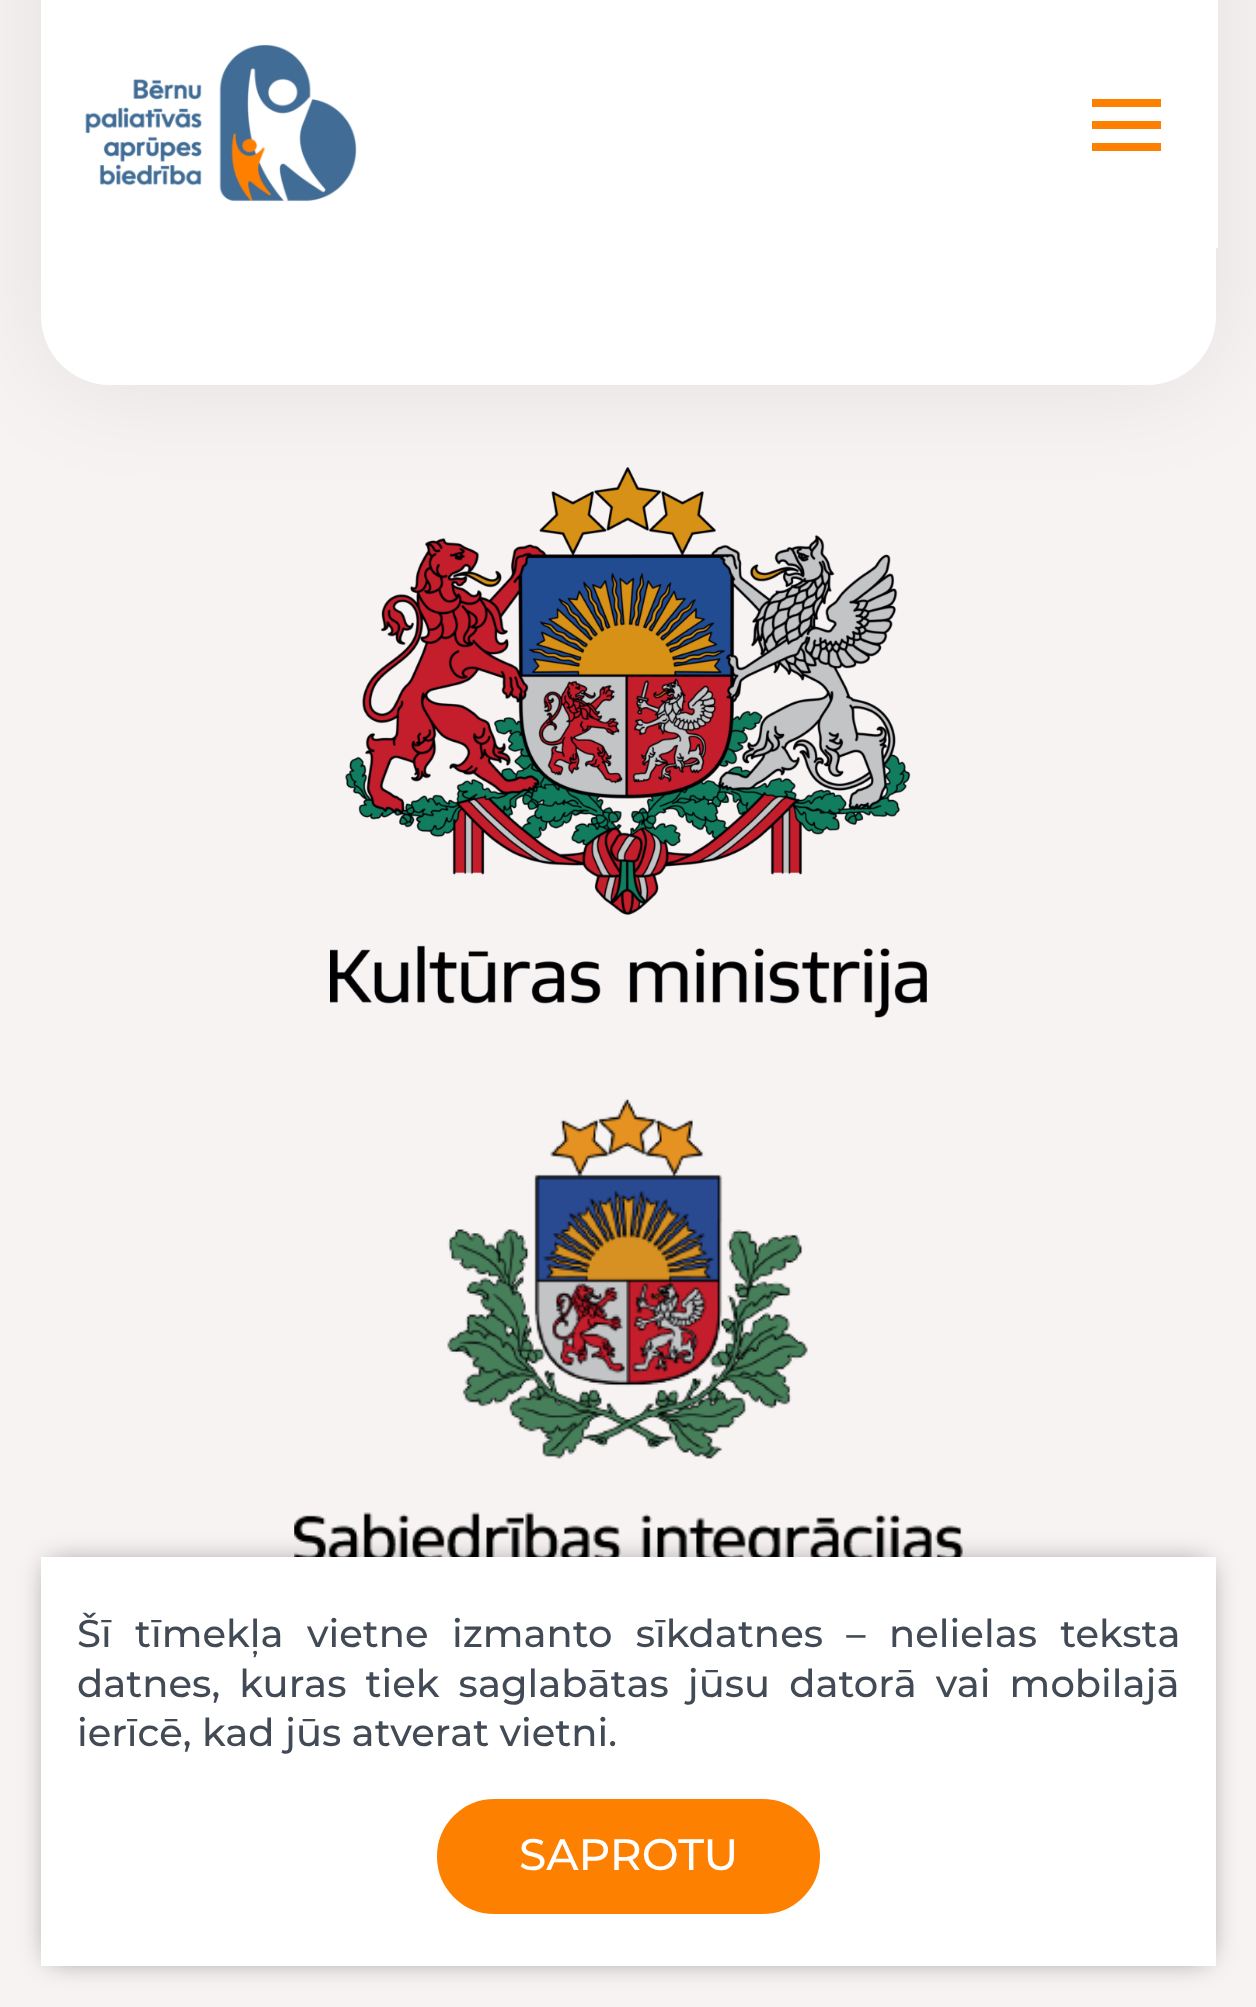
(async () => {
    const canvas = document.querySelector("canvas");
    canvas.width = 1256;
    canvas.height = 2007;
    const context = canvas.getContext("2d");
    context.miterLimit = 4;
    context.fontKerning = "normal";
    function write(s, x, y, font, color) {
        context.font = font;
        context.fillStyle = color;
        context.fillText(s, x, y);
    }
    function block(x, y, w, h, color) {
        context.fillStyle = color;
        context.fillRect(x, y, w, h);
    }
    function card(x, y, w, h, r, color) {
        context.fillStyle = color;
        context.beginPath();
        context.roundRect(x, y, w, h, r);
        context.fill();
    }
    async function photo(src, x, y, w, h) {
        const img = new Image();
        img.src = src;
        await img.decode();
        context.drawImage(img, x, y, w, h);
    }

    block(0, 0, 1256, 2007, "rgb(247, 243, 242)");
    await photo("media/2.png", 330, 467, 597, 551);
    context.fillStyle = "rgba(0, 0, 0, 0.08)";
    context.filter = "blur(52px)";
    context.beginPath();
    context.roundRect(41, -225, 1175, 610, 69);
    context.fill();
    context.filter = "none";
    card(41, -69, 1175, 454, 69, "rgb(255, 255, 255)");
    block(1216, 0, 2, 248, "rgb(255, 255, 255)");
    await photo("media/1.png", 85, 44, 272, 158);
    block(1092, 99, 69, 8, "rgb(254, 128, 1)");
    block(1092, 121, 69, 8, "rgb(254, 128, 1)");
    block(1092, 143, 69, 8, "rgb(254, 128, 1)");
    await photo("media/3.png", 294, 1099, 669, 458);
    context.fillStyle = "rgba(0, 0, 0, 0.5)";
    context.filter = "blur(14px)";
    context.beginPath();
    context.rect(50, 1565, 1157, 393);
    context.fill();
    context.filter = "none";
    block(41, 1557, 1175, 409, "rgb(255, 255, 255)");
    context.wordSpacing = "13px";
    write("Šī tīmekļa vietne izmanto sīkdatnes – nelielas teksta", 77, 1647, "500 38.5px Montserrat", "rgb(66, 75, 85)");
    context.wordSpacing = "8.75px";
    write("datnes, kuras tiek saglabātas jūsu datorā vai mobilajā", 77, 1697, "500 38.5px Montserrat", "rgb(66, 75, 85)");
    context.wordSpacing = "0px";
    write("ierīcē, kad jūs atverat vietni.", 77, 1746, "500 38.5px Montserrat", "rgb(66, 75, 85)");
    context.fillStyle = "rgb(254, 128, 1)";
    context.beginPath();
    context.roundRect(440, 1802, 377, 109, 54.5);
    context.fill();
    context.strokeStyle = "rgb(254, 128, 1)";
    context.lineWidth = 6;
    context.stroke();
    write("SAPROTU", 519, 1870, "500 44px Montserrat", "rgb(255, 255, 255)");
})();
